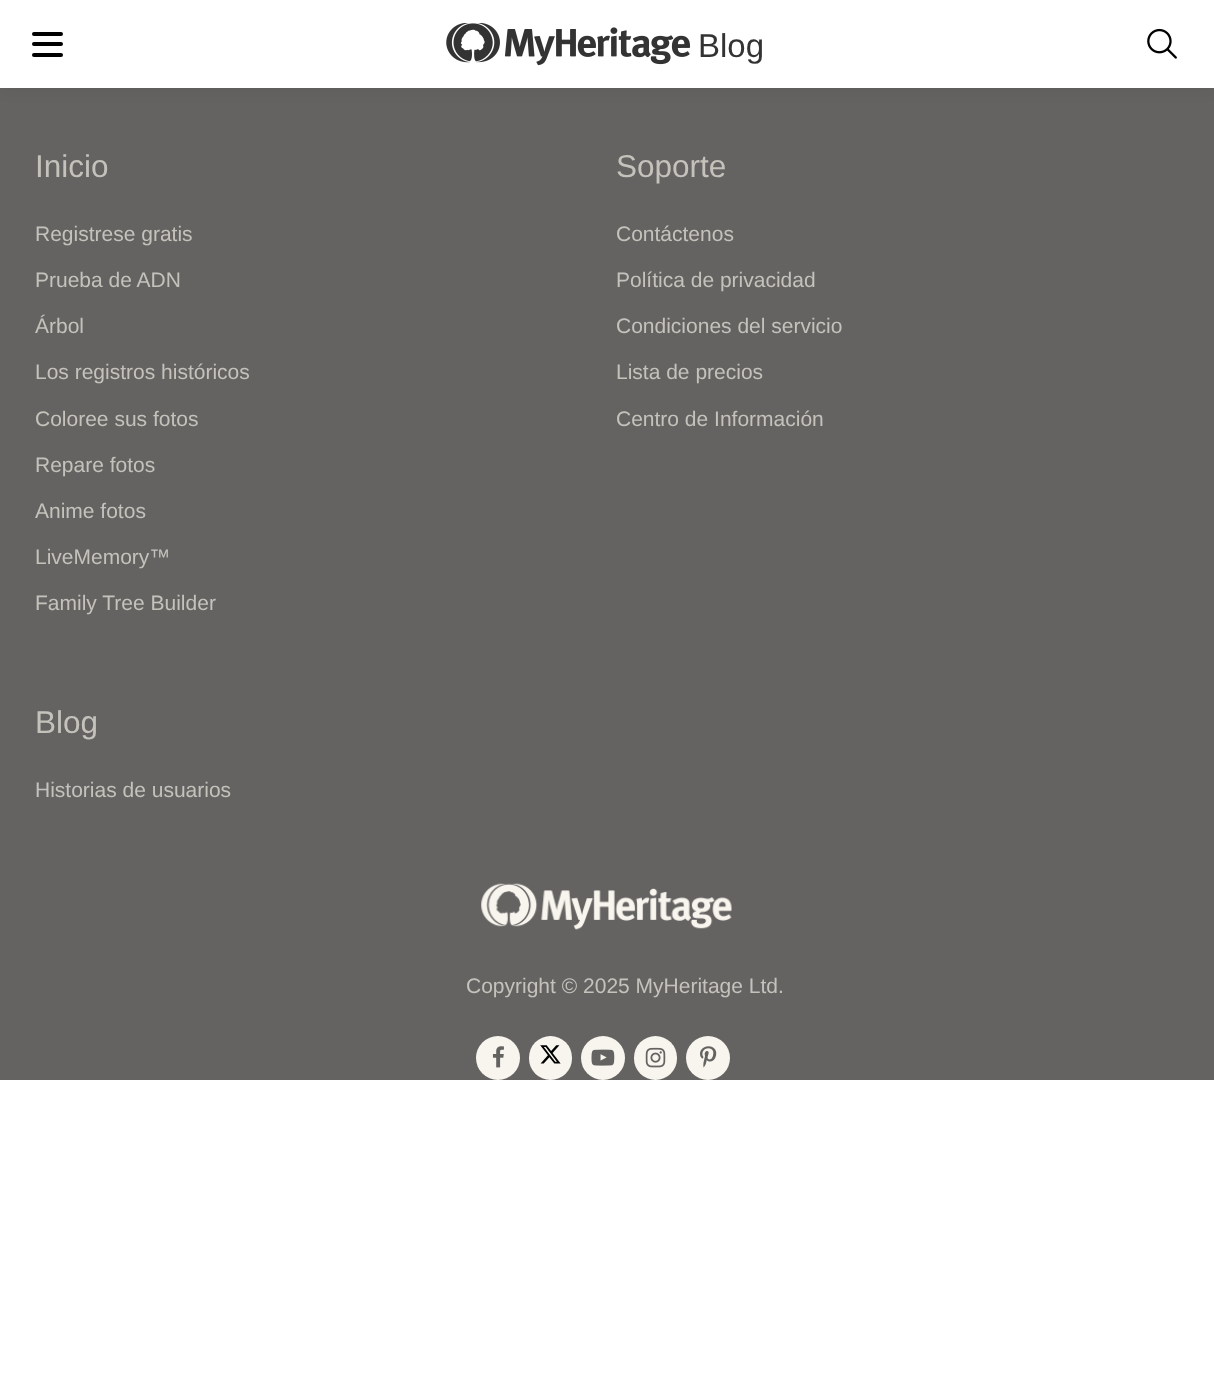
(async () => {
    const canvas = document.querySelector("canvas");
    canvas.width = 1214;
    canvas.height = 1379;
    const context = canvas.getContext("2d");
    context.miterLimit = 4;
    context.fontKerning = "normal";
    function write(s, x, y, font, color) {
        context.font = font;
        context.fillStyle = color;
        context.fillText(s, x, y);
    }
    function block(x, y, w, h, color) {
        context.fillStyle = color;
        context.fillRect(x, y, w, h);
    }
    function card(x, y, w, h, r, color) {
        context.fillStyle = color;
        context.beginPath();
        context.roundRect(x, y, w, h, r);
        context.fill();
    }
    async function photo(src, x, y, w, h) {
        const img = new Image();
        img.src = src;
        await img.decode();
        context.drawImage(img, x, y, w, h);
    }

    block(0, 0, 1214, 1379, "rgb(255, 255, 255)");
    block(0, 88, 1214, 992, "rgb(100, 99, 98)");
    context.fillStyle = "rgba(0, 0, 0, 0.05)";
    context.filter = "blur(7px)";
    context.beginPath();
    context.rect(0, 4, 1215, 87);
    context.fill();
    context.filter = "none";
    block(0, 0, 1214, 88, "rgb(255, 255, 255)");
    card(32, 32, 31, 4, 2, "rgb(0, 0, 0)");
    card(32, 42, 31, 4, 2, "rgb(0, 0, 0)");
    card(32, 53, 31, 4, 2, "rgb(0, 0, 0)");
    await photo("media/1.png", 446, 23, 245, 43);
    write("Blog", 698, 57, "33px Liberation Sans", "rgb(51, 51, 51)");
    await photo("media/2.png", 1147, 28, 30, 31);
    write("Inicio", 35, 177, "31.5px Liberation Sans", "rgb(196, 194, 187)");
    write("Registrese gratis", 35, 241, "21px Liberation Sans", "rgb(196, 194, 187)");
    write("Prueba de ADN", 35, 287, "21px Liberation Sans", "rgb(196, 194, 187)");
    write("Árbol", 35, 333, "21px Liberation Sans", "rgb(196, 194, 187)");
    write("Los registros históricos", 35, 379, "21px Liberation Sans", "rgb(196, 194, 187)");
    write("Coloree sus fotos", 35, 426, "21px Liberation Sans", "rgb(196, 194, 187)");
    write("Repare fotos", 35, 472, "21px Liberation Sans", "rgb(196, 194, 187)");
    write("Anime fotos", 35, 518, "21px Liberation Sans", "rgb(196, 194, 187)");
    write("LiveMemory™", 35, 564, "21px Liberation Sans", "rgb(196, 194, 187)");
    write("Family Tree Builder", 35, 610, "21px Liberation Sans", "rgb(196, 194, 187)");
    write("Soporte", 616, 177, "31.5px Liberation Sans", "rgb(196, 194, 187)");
    write("Contáctenos", 616, 241, "21px Liberation Sans", "rgb(196, 194, 187)");
    write("Política de privacidad", 616, 287, "21px Liberation Sans", "rgb(196, 194, 187)");
    write("Condiciones del servicio", 616, 333, "21px Liberation Sans", "rgb(196, 194, 187)");
    write("Lista de precios", 616, 379, "21px Liberation Sans", "rgb(196, 194, 187)");
    write("Centro de Información", 616, 426, "21px Liberation Sans", "rgb(196, 194, 187)");
    write("Blog", 35, 733, "31.5px Liberation Sans", "rgb(196, 194, 187)");
    write("Historias de usuarios", 35, 797, "21px Liberation Sans", "rgb(196, 194, 187)");
    await photo("media/3.png", 481, 883, 251, 47);
    write("Copyright © 2025 MyHeritage Ltd.", 466, 993, "21px Liberation Sans", "rgb(196, 194, 187)");
    context.fillStyle = "rgb(248, 245, 238)";
    context.beginPath();
    context.arc(498, 1058, 22, 0, Math.PI * 2);
    context.fill();
    await photo("media/4.png", 492, 1046, 12, 22);
    card(529, 1036, 43, 44, 21.5, "rgb(248, 245, 238)");
    await photo("media/5.png", 540, 1045, 21, 19);
    context.beginPath();
    context.arc(603, 1058, 22, 0, Math.PI * 2);
    context.fill();
    await photo("media/6.png", 591, 1049, 24, 17);
    card(634, 1036, 43, 44, 21.5, "rgb(248, 245, 238)");
    await photo("media/7.png", 645, 1047, 21, 21);
    context.beginPath();
    context.arc(708, 1058, 22, 0, Math.PI * 2);
    context.fill();
    await photo("media/8.png", 700, 1046, 17, 22);
})();
